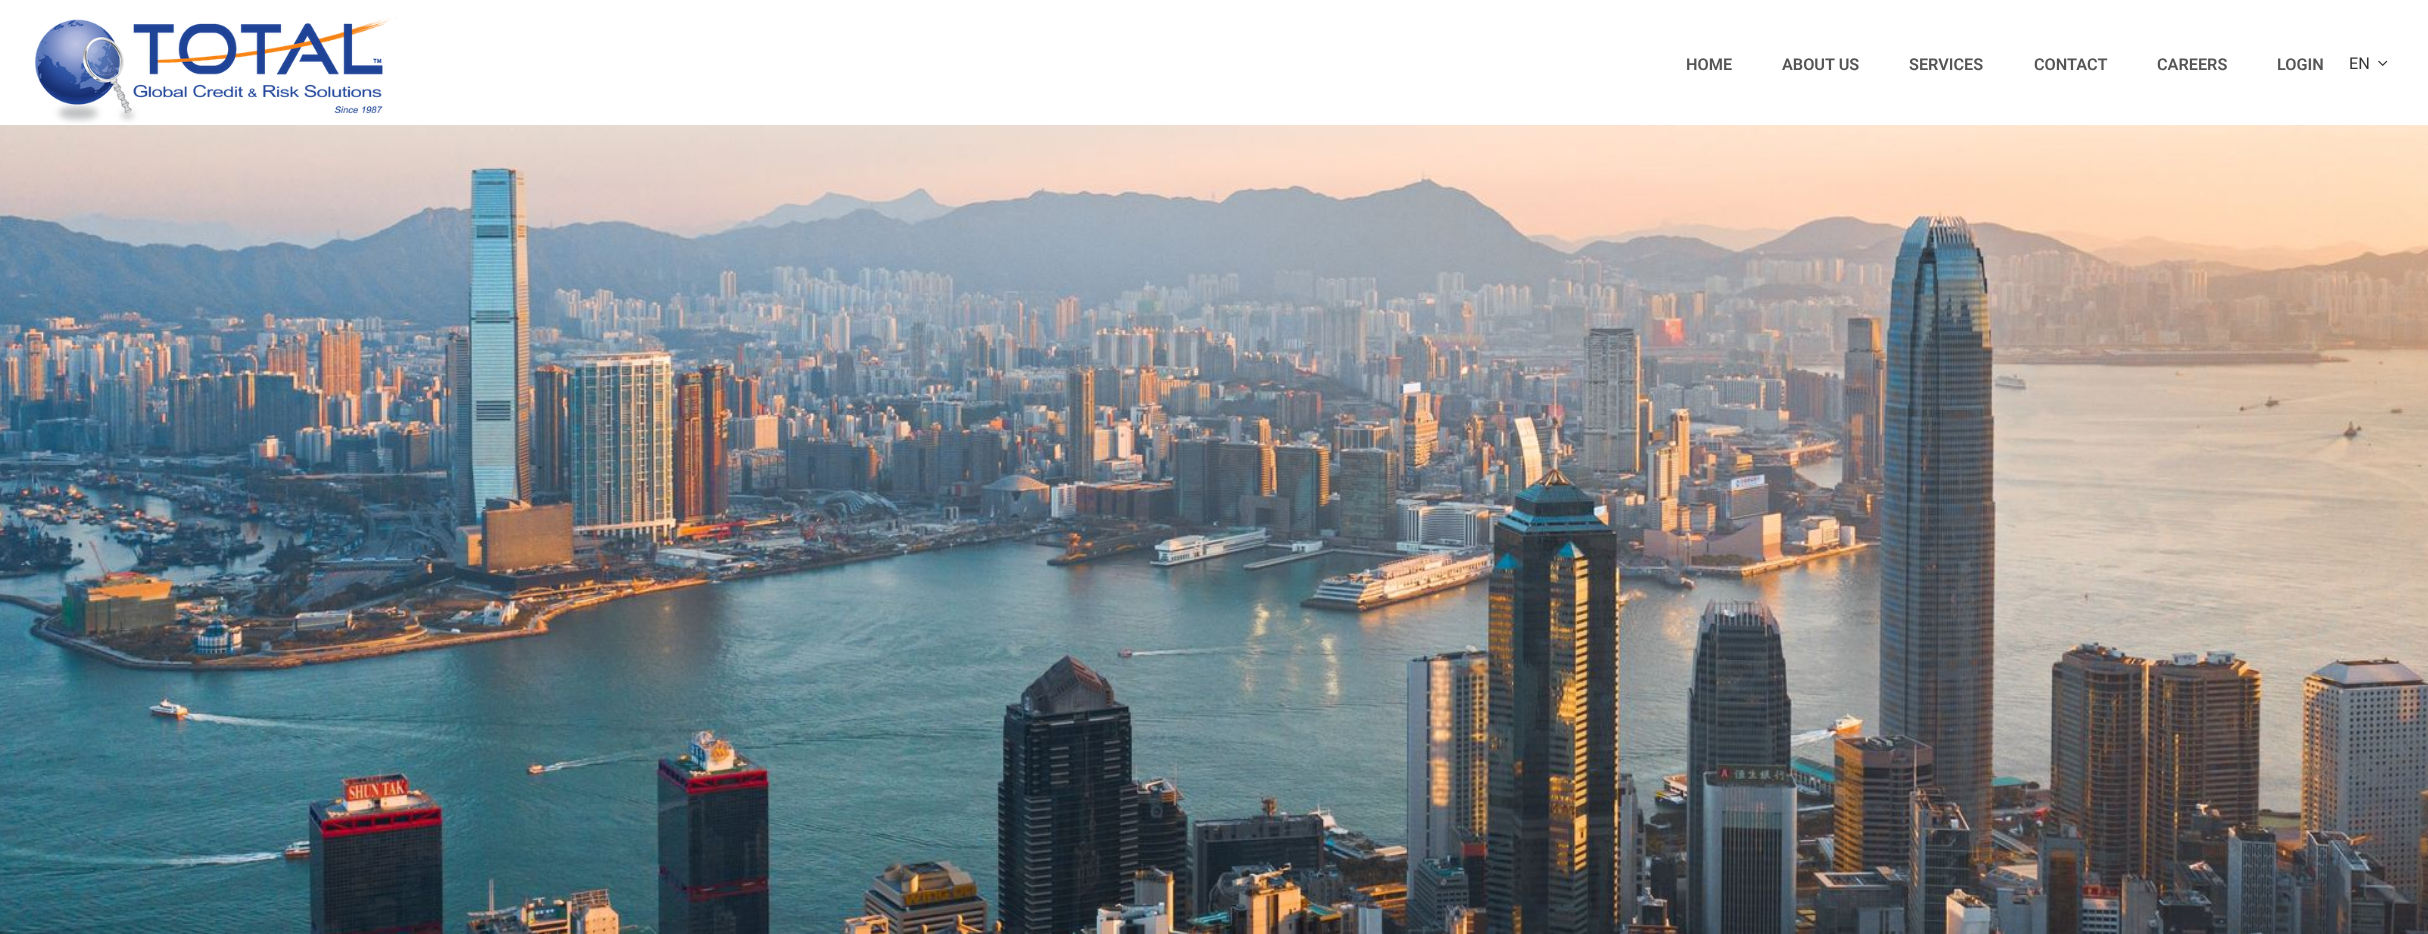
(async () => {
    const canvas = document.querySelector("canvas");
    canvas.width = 2428;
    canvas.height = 934;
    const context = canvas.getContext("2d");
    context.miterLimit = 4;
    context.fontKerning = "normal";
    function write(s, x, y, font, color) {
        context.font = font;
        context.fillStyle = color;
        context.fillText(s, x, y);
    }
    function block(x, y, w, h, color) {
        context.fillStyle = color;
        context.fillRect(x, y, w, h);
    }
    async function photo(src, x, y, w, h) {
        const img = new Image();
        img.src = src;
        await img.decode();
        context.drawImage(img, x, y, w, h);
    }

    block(0, 0, 2428, 934, "rgb(255, 255, 255)");
    await photo("media/1.png", 34, 17, 363, 107);
    write("HOME", 1686, 70, "600 16.25px Roboto", "rgb(85, 85, 85)");
    write("ABOUT US", 1782, 70, "600 16.25px Roboto", "rgb(85, 85, 85)");
    write("SERVICES", 1909, 70, "600 16.25px Roboto", "rgb(85, 85, 85)");
    write("CONTACT", 2034, 70, "600 16.25px Roboto", "rgb(85, 85, 85)");
    write("CAREERS", 2157, 70, "600 16.25px Roboto", "rgb(85, 85, 85)");
    write("LOGIN", 2277, 70, "600 16.25px Roboto", "rgb(85, 85, 85)");
    write("EN", 2349, 69, "16.25px Roboto", "rgb(51, 51, 51)");
    await photo("media/2.png", 2378, 60, 10, 6);
    await photo("media/3.png", 0, 125, 2428, 809);
})();
